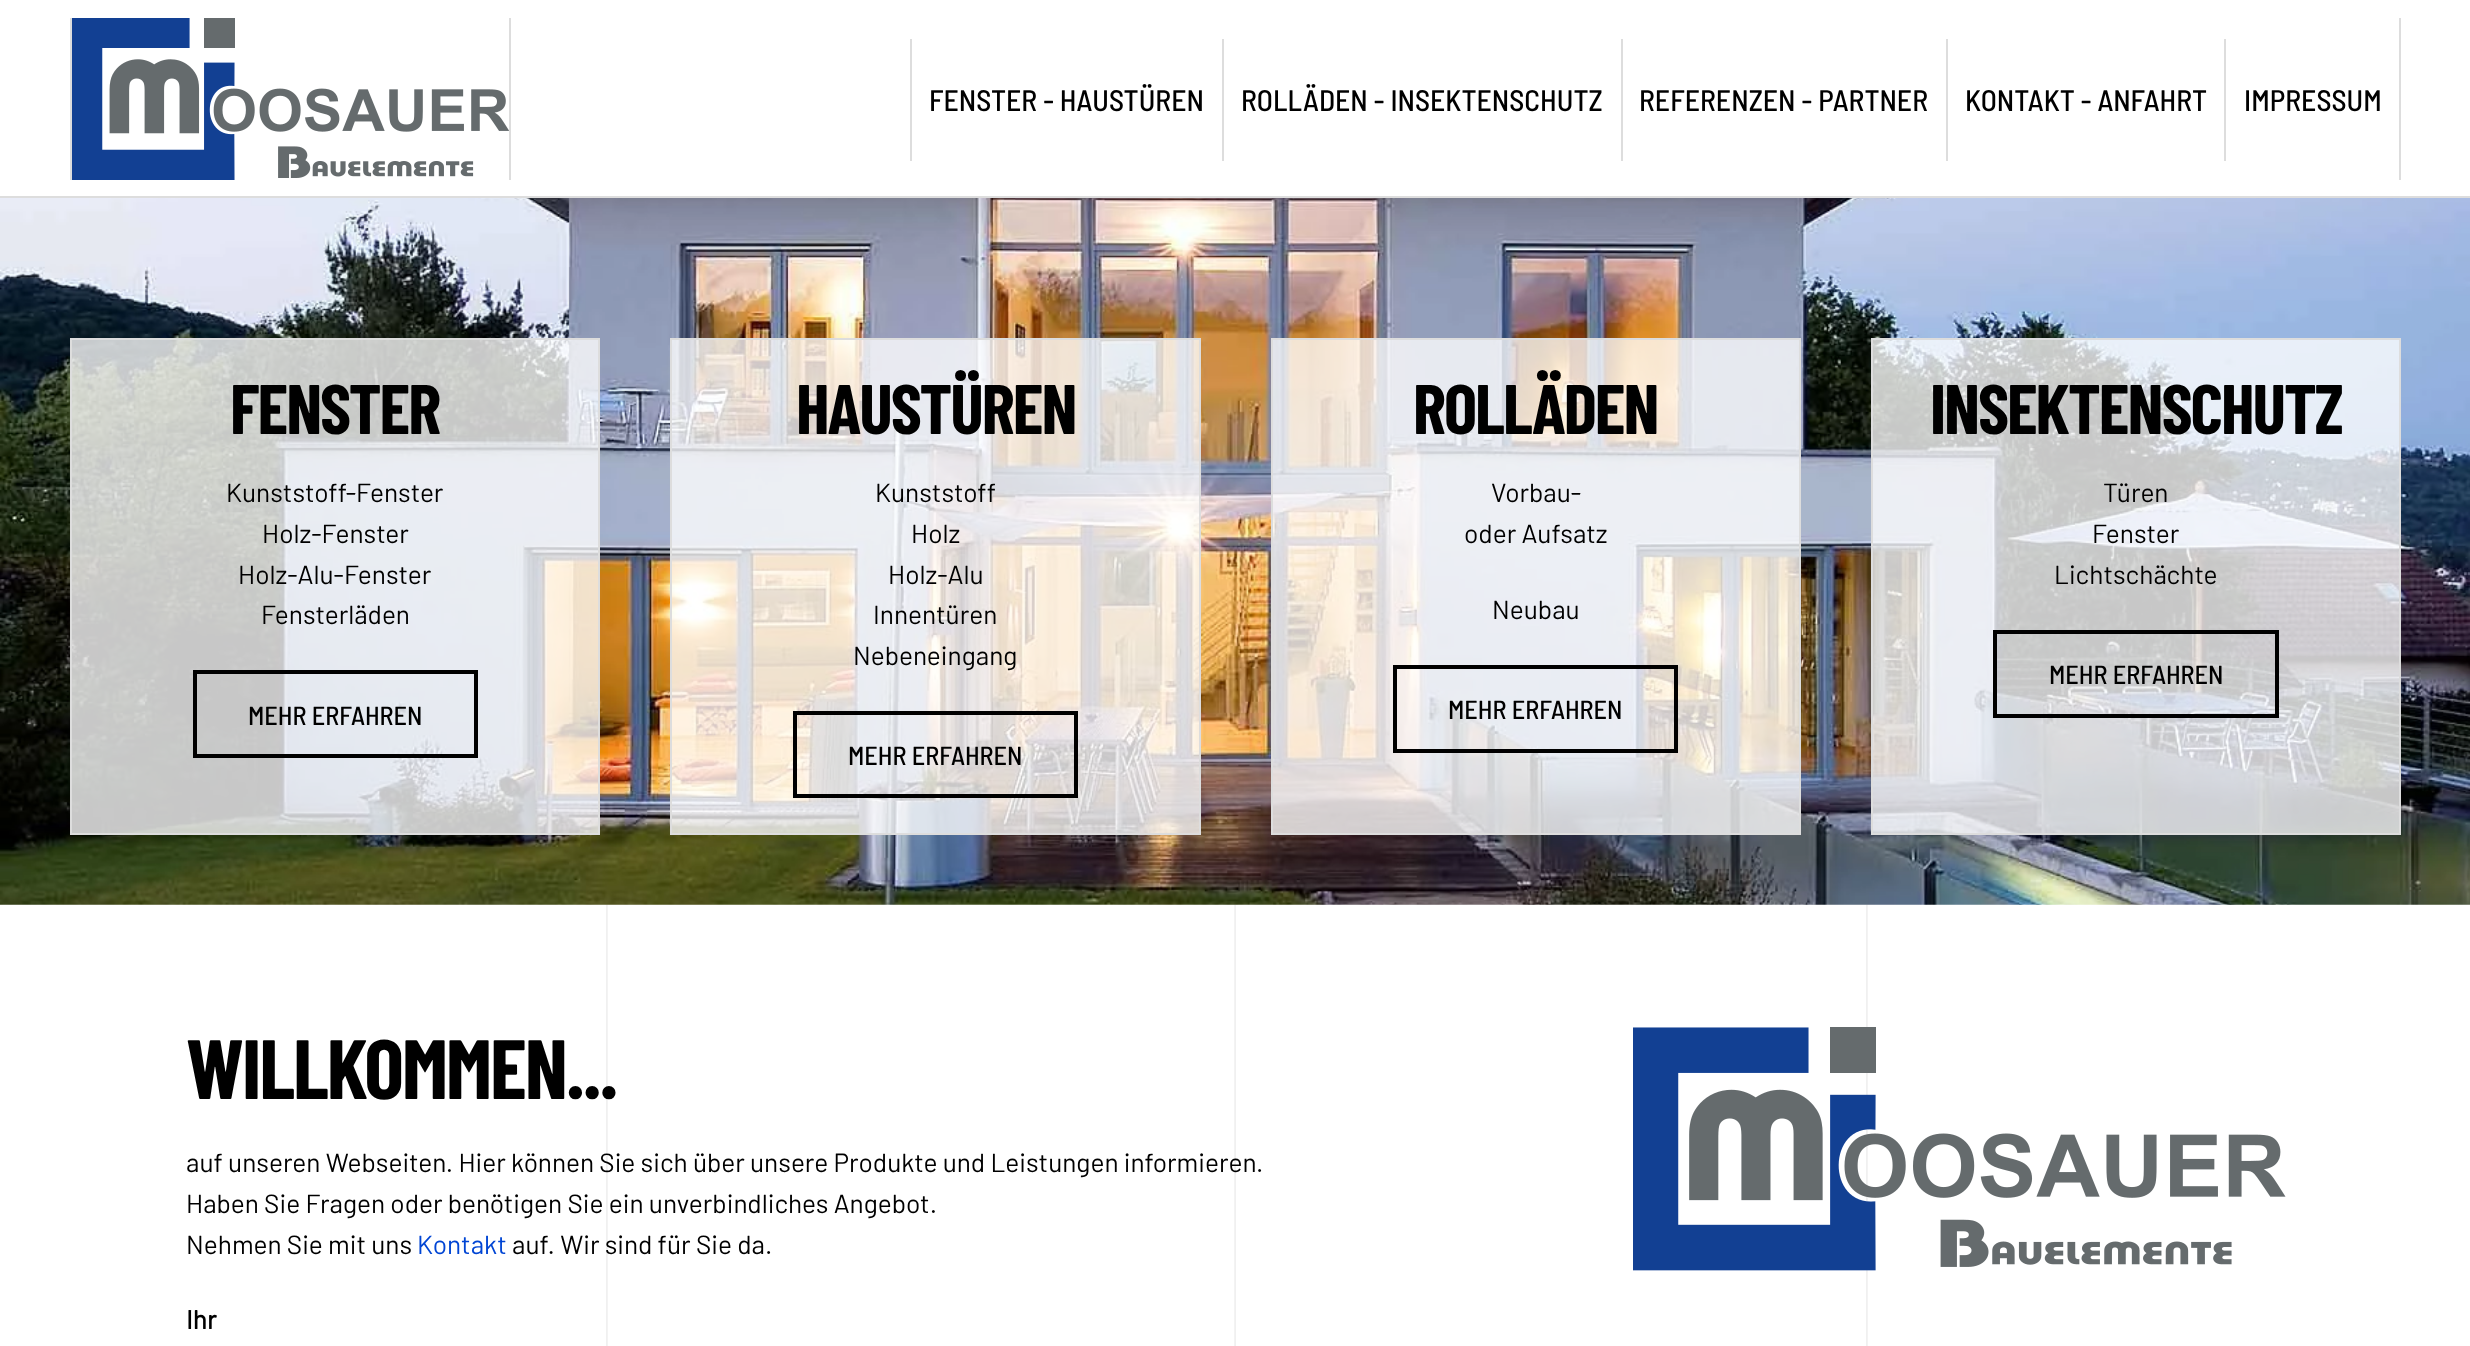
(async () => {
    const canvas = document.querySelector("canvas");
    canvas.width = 2470;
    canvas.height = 1346;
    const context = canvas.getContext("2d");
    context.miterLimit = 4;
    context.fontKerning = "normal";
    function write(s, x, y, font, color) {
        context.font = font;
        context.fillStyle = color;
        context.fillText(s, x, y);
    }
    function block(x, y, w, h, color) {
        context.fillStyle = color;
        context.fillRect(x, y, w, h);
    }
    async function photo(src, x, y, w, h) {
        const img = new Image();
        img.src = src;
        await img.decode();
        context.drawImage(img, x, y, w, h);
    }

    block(0, 0, 2470, 1346, "rgb(255, 255, 255)");
    block(0, 196, 2470, 2, "rgb(221, 221, 221)");
    block(70, 18, 2, 162, "rgb(221, 221, 221)");
    block(509, 18, 2, 162, "rgb(221, 221, 221)");
    await photo("media/1.png", 72, 18, 437, 162);
    block(2399, 18, 2, 162, "rgb(221, 221, 221)");
    block(910, 39, 2, 122, "rgb(221, 221, 221)");
    block(1222, 39, 2, 122, "rgb(221, 221, 221)");
    write("FENSTER - HAUSTÜREN", 929, 111, "500 29.75px Barlow Semi Condensed", "rgb(0, 0, 0)");
    block(1621, 39, 2, 122, "rgb(221, 221, 221)");
    write("ROLLÄDEN - INSEKTENSCHUTZ", 1241, 111, "500 29.75px Barlow Semi Condensed", "rgb(0, 0, 0)");
    block(1946, 39, 2, 122, "rgb(221, 221, 221)");
    write("REFERENZEN - PARTNER", 1639, 111, "500 29.75px Barlow Semi Condensed", "rgb(0, 0, 0)");
    block(2224, 39, 2, 122, "rgb(221, 221, 221)");
    write("KONTAKT - ANFAHRT", 1965, 111, "500 29.75px Barlow Semi Condensed", "rgb(0, 0, 0)");
    write("IMPRESSUM", 2244, 111, "500 29.75px Barlow Semi Condensed", "rgb(0, 0, 0)");
    await photo("media/2.png", 606, 904, 1262, 1);
    await photo("media/3.png", 0, 198, 2470, 707);
    context.fillStyle = "rgba(255, 255, 255, 0.78)";
    context.beginPath();
    context.rect(71, 339, 528, 495);
    context.fill();
    context.strokeStyle = "rgb(221, 221, 221)";
    context.lineWidth = 2;
    context.stroke();
    context.letterSpacing = "-2px";
    write("FENSTER", 230, 434, "bold 70px Barlow Condensed", "rgb(0, 0, 0)");
    context.letterSpacing = "0px";
    write("Kunststoff-Fenster", 226, 502, "26.25px Barlow", "rgb(0, 0, 0)");
    write("Holz-Fenster", 262, 543, "26.25px Barlow", "rgb(0, 0, 0)");
    write("Holz-Alu-Fenster", 238, 584, "26.25px Barlow", "rgb(0, 0, 0)");
    write("Fensterläden", 261, 624, "26.25px Barlow", "rgb(0, 0, 0)");
    context.strokeStyle = "rgb(0, 0, 0)";
    context.lineWidth = 4;
    context.strokeRect(195, 672, 281, 84);
    write("MEHR ERFAHREN", 248, 725, "500 26.25px Barlow Semi Condensed", "rgb(0, 0, 0)");
    context.fillStyle = "rgba(255, 255, 255, 0.78)";
    context.beginPath();
    context.rect(671, 339, 529, 495);
    context.fill();
    context.strokeStyle = "rgb(221, 221, 221)";
    context.lineWidth = 2;
    context.stroke();
    context.letterSpacing = "-2px";
    write("HAUSTÜREN", 796, 434, "bold 70px Barlow Condensed", "rgb(0, 0, 0)");
    context.letterSpacing = "0px";
    write("Kunststoff", 875, 502, "26.25px Barlow", "rgb(0, 0, 0)");
    write("Holz", 911, 543, "26.25px Barlow", "rgb(0, 0, 0)");
    write("Holz-Alu", 888, 584, "26.25px Barlow", "rgb(0, 0, 0)");
    write("Innentüren", 873, 624, "26.25px Barlow", "rgb(0, 0, 0)");
    write("Nebeneingang", 853, 665, "26.25px Barlow", "rgb(0, 0, 0)");
    context.strokeStyle = "rgb(0, 0, 0)";
    context.lineWidth = 4;
    context.strokeRect(795, 713, 281, 83);
    write("MEHR ERFAHREN", 848, 765, "500 26.25px Barlow Semi Condensed", "rgb(0, 0, 0)");
    context.fillStyle = "rgba(255, 255, 255, 0.78)";
    context.beginPath();
    context.rect(1272, 339, 528, 495);
    context.fill();
    context.strokeStyle = "rgb(221, 221, 221)";
    context.lineWidth = 2;
    context.stroke();
    context.letterSpacing = "-2px";
    write("ROLLÄDEN", 1413, 434, "bold 70px Barlow Condensed", "rgb(0, 0, 0)");
    context.letterSpacing = "0px";
    write("Vorbau-", 1491, 502, "26.25px Barlow", "rgb(0, 0, 0)");
    write("oder Aufsatz", 1464, 543, "26.25px Barlow", "rgb(0, 0, 0)");
    write("Neubau", 1492, 619, "26.25px Barlow", "rgb(0, 0, 0)");
    context.strokeStyle = "rgb(0, 0, 0)";
    context.lineWidth = 4;
    context.strokeRect(1395, 667, 281, 84);
    write("MEHR ERFAHREN", 1448, 719, "500 26.25px Barlow Semi Condensed", "rgb(0, 0, 0)");
    context.fillStyle = "rgba(255, 255, 255, 0.78)";
    context.beginPath();
    context.rect(1872, 339, 528, 495);
    context.fill();
    context.strokeStyle = "rgb(221, 221, 221)";
    context.lineWidth = 2;
    context.stroke();
    context.letterSpacing = "-2px";
    write("INSEKTENSCHUTZ", 1930, 434, "bold 70px Barlow Condensed", "rgb(0, 0, 0)");
    context.letterSpacing = "0px";
    write("Türen", 2103, 502, "26.25px Barlow", "rgb(0, 0, 0)");
    write("Fenster", 2092, 543, "26.25px Barlow", "rgb(0, 0, 0)");
    write("Lichtschächte", 2054, 584, "26.25px Barlow", "rgb(0, 0, 0)");
    context.strokeStyle = "rgb(0, 0, 0)";
    context.lineWidth = 4;
    context.strokeRect(1995, 632, 282, 84);
    write("MEHR ERFAHREN", 2049, 684, "500 26.25px Barlow Semi Condensed", "rgb(0, 0, 0)");
    await photo("media/4.png", 606, 905, 1262, 441);
    context.letterSpacing = "-2px";
    write("WILLKOMMEN...", 186, 1099, "bold 84px Barlow Condensed", "rgb(0, 0, 0)");
    context.letterSpacing = "0px";
    write("auf unseren Webseiten. Hier können Sie sich über unsere Produkte und Leistungen informieren.", 186, 1172, "26.25px Barlow", "rgb(0, 0, 0)");
    write("Haben Sie Fragen oder benötigen Sie ein unverbindliches Angebot.", 186, 1213, "26.25px Barlow", "rgb(0, 0, 0)");
    write("Nehmen Sie mit uns", 186, 1254, "26.25px Barlow", "rgb(0, 0, 0)");
    write("Kontakt", 417, 1254, "26.25px Barlow", "rgb(0, 69, 212)");
    write("auf. Wir sind für Sie da.", 512, 1254, "26.25px Barlow", "rgb(0, 0, 0)");
    write("Ihr", 186, 1329, "bold 26.25px Barlow", "rgb(0, 0, 0)");
    await photo("media/5.png", 1633, 1027, 653, 244);
})();
